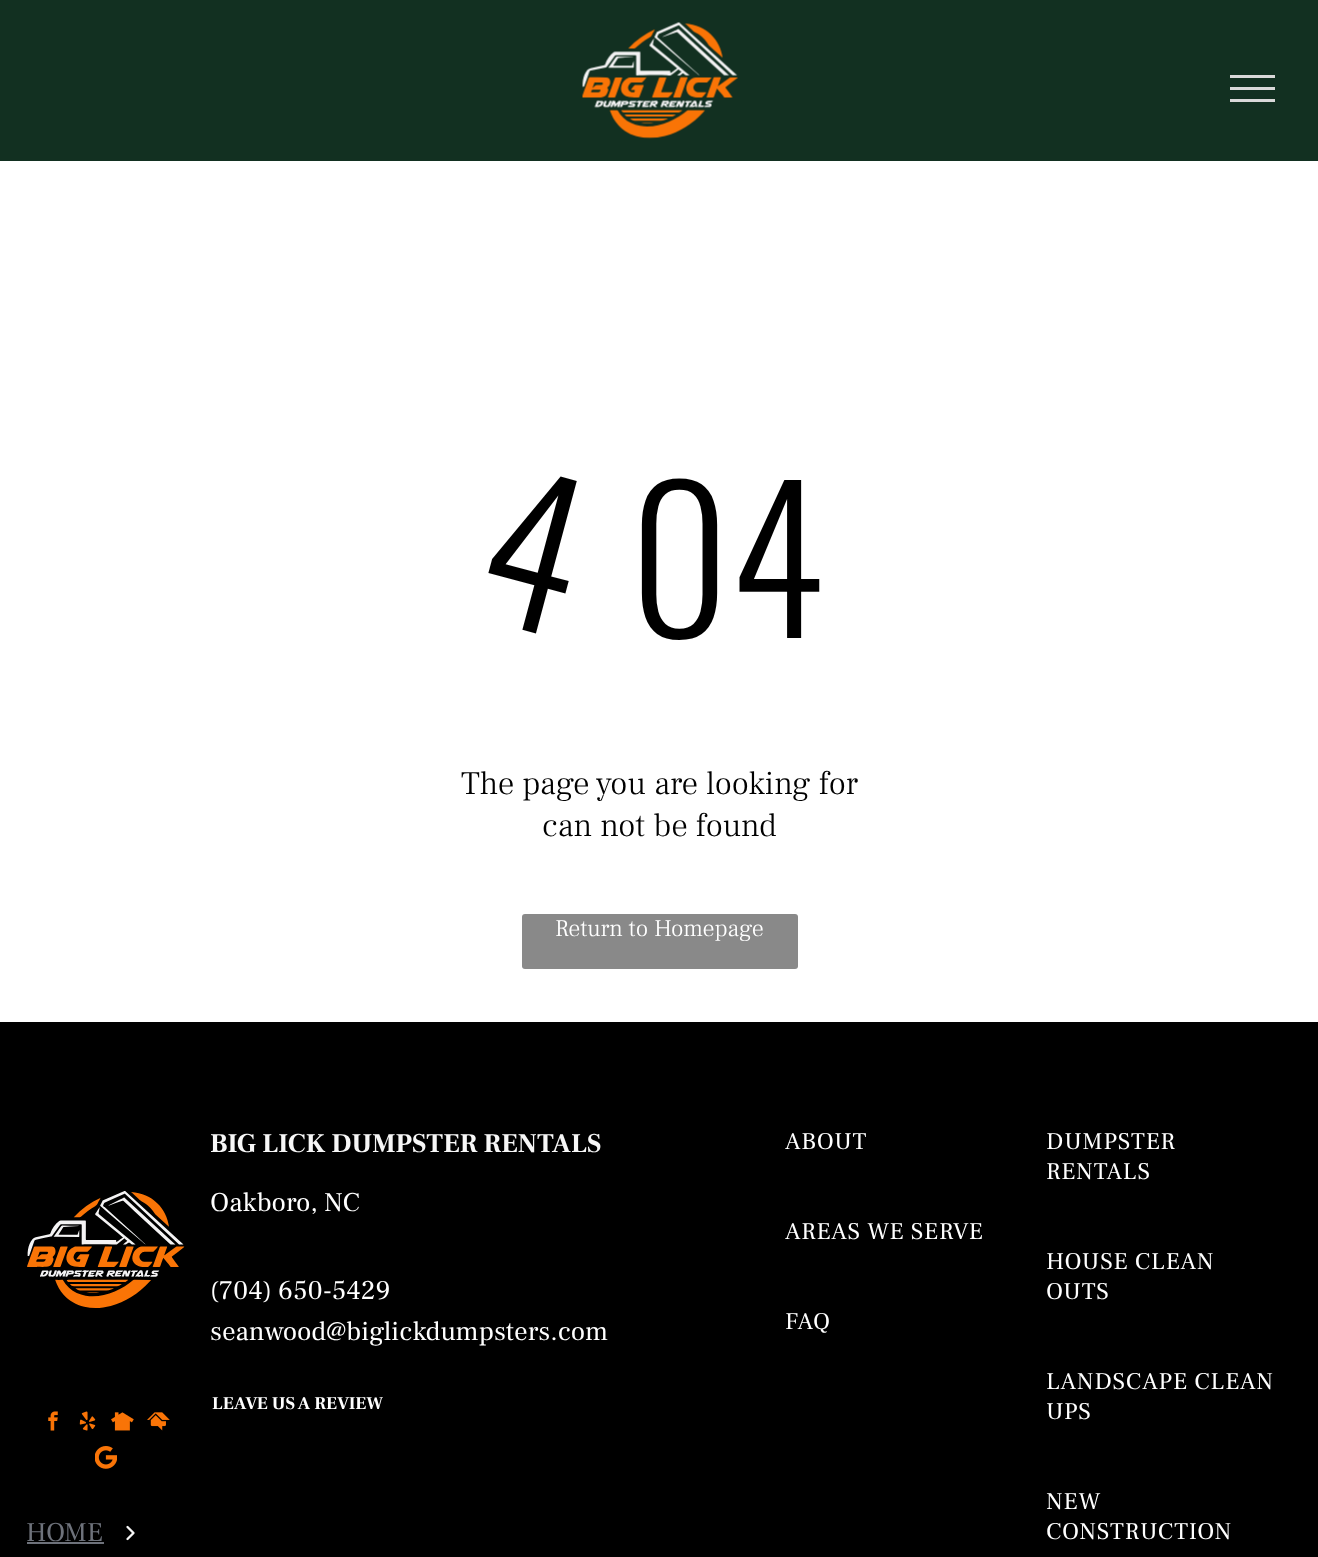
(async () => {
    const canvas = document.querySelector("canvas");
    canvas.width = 1318;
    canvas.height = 1557;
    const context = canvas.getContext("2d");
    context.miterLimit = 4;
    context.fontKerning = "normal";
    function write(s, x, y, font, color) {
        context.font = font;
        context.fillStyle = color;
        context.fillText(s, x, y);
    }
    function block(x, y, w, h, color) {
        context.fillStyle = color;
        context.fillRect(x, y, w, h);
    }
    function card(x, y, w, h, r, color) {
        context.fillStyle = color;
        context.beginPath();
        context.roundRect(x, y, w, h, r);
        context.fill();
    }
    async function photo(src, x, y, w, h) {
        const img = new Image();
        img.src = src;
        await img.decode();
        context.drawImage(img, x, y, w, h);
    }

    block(0, 0, 1318, 1557, "rgb(255, 255, 255)");
    block(0, 0, 1318, 161, "rgb(18, 48, 33)");
    await photo("media/1.png", 582, 22, 156, 117);
    block(1230, 75, 45, 3, "rgb(217, 217, 217)");
    block(1230, 87, 45, 3, "rgb(217, 217, 217)");
    block(1230, 99, 45, 3, "rgb(217, 217, 217)");
    context.font = "300 195px Oswald";
    context.fillStyle = "rgb(0, 0, 0)";
    context.save();
    context.translate(467, 615);
    context.rotate(15 * Math.PI / 180);
    context.fillText("4", 0, 0);
    context.restore();
    write("04", 629, 638, "300 195px Oswald", "rgb(0, 0, 0)");
    write("The page you are looking for", 461, 794, "300 33px Frank Ruhl Libre", "rgb(0, 0, 0)");
    write("can not be found", 542, 836, "300 33px Frank Ruhl Libre", "rgb(0, 0, 0)");
    card(522, 914, 276, 55, 3, "rgb(137, 137, 137)");
    write("Return to Homepage", 555, 936, "300 24px Frank Ruhl Libre", "rgb(255, 255, 255)");
    block(0, 1022, 1318, 535, "rgb(0, 0, 0)");
    write("BIG LICK DUMPSTER RENTALS", 210, 1152, "bold 27px Frank Ruhl Libre", "rgb(247, 247, 247)");
    write("Oakboro, NC", 210, 1211, "27px Frank Ruhl Libre", "rgb(255, 255, 255)");
    write("(704) 650-5429", 210, 1299, "27px Frank Ruhl Libre", "rgb(255, 255, 255)");
    write("seanwood@biglickdumpsters.com", 210, 1340, "27px Frank Ruhl Libre", "rgb(255, 255, 255)");
    write("LEAVE US A REVIEW", 212, 1409, "bold 18px Frank Ruhl Libre", "rgb(255, 255, 255)");
    context.letterSpacing = "0.75px";
    write("ABOUT", 785, 1149, "24px Frank Ruhl Libre", "rgb(255, 255, 255)");
    write("AREAS WE SERVE", 785, 1239, "24px Frank Ruhl Libre", "rgb(255, 255, 255)");
    write("FAQ", 785, 1329, "24px Frank Ruhl Libre", "rgb(255, 255, 255)");
    write("DUMPSTER", 1046, 1149, "24px Frank Ruhl Libre", "rgb(255, 255, 255)");
    write("RENTALS", 1046, 1179, "24px Frank Ruhl Libre", "rgb(255, 255, 255)");
    write("HOUSE CLEAN", 1046, 1269, "24px Frank Ruhl Libre", "rgb(255, 255, 255)");
    write("OUTS", 1046, 1299, "24px Frank Ruhl Libre", "rgb(255, 255, 255)");
    write("LANDSCAPE CLEAN", 1046, 1389, "24px Frank Ruhl Libre", "rgb(255, 255, 255)");
    write("UPS", 1046, 1419, "24px Frank Ruhl Libre", "rgb(255, 255, 255)");
    write("NEW", 1046, 1509, "24px Frank Ruhl Libre", "rgb(255, 255, 255)");
    write("CONSTRUCTION", 1046, 1539, "24px Frank Ruhl Libre", "rgb(255, 255, 255)");
    await photo("media/2.png", 27, 1191, 158, 117);
    await photo("media/3.png", 48, 1411, 10, 20);
    await photo("media/4.png", 79, 1411, 17, 20);
    await photo("media/5.png", 111, 1412, 23, 19);
    await photo("media/6.png", 147, 1412, 23, 19);
    await photo("media/7.png", 95, 1446, 22, 23);
    context.letterSpacing = "0px";
    write("HOME", 26, 1541, "27px Frank Ruhl Libre", "rgb(110, 114, 123)");
    block(27, 1542, 77, 2, "rgb(110, 114, 123)");
    await photo("media/8.png", 126, 1525, 9, 16);
})();
